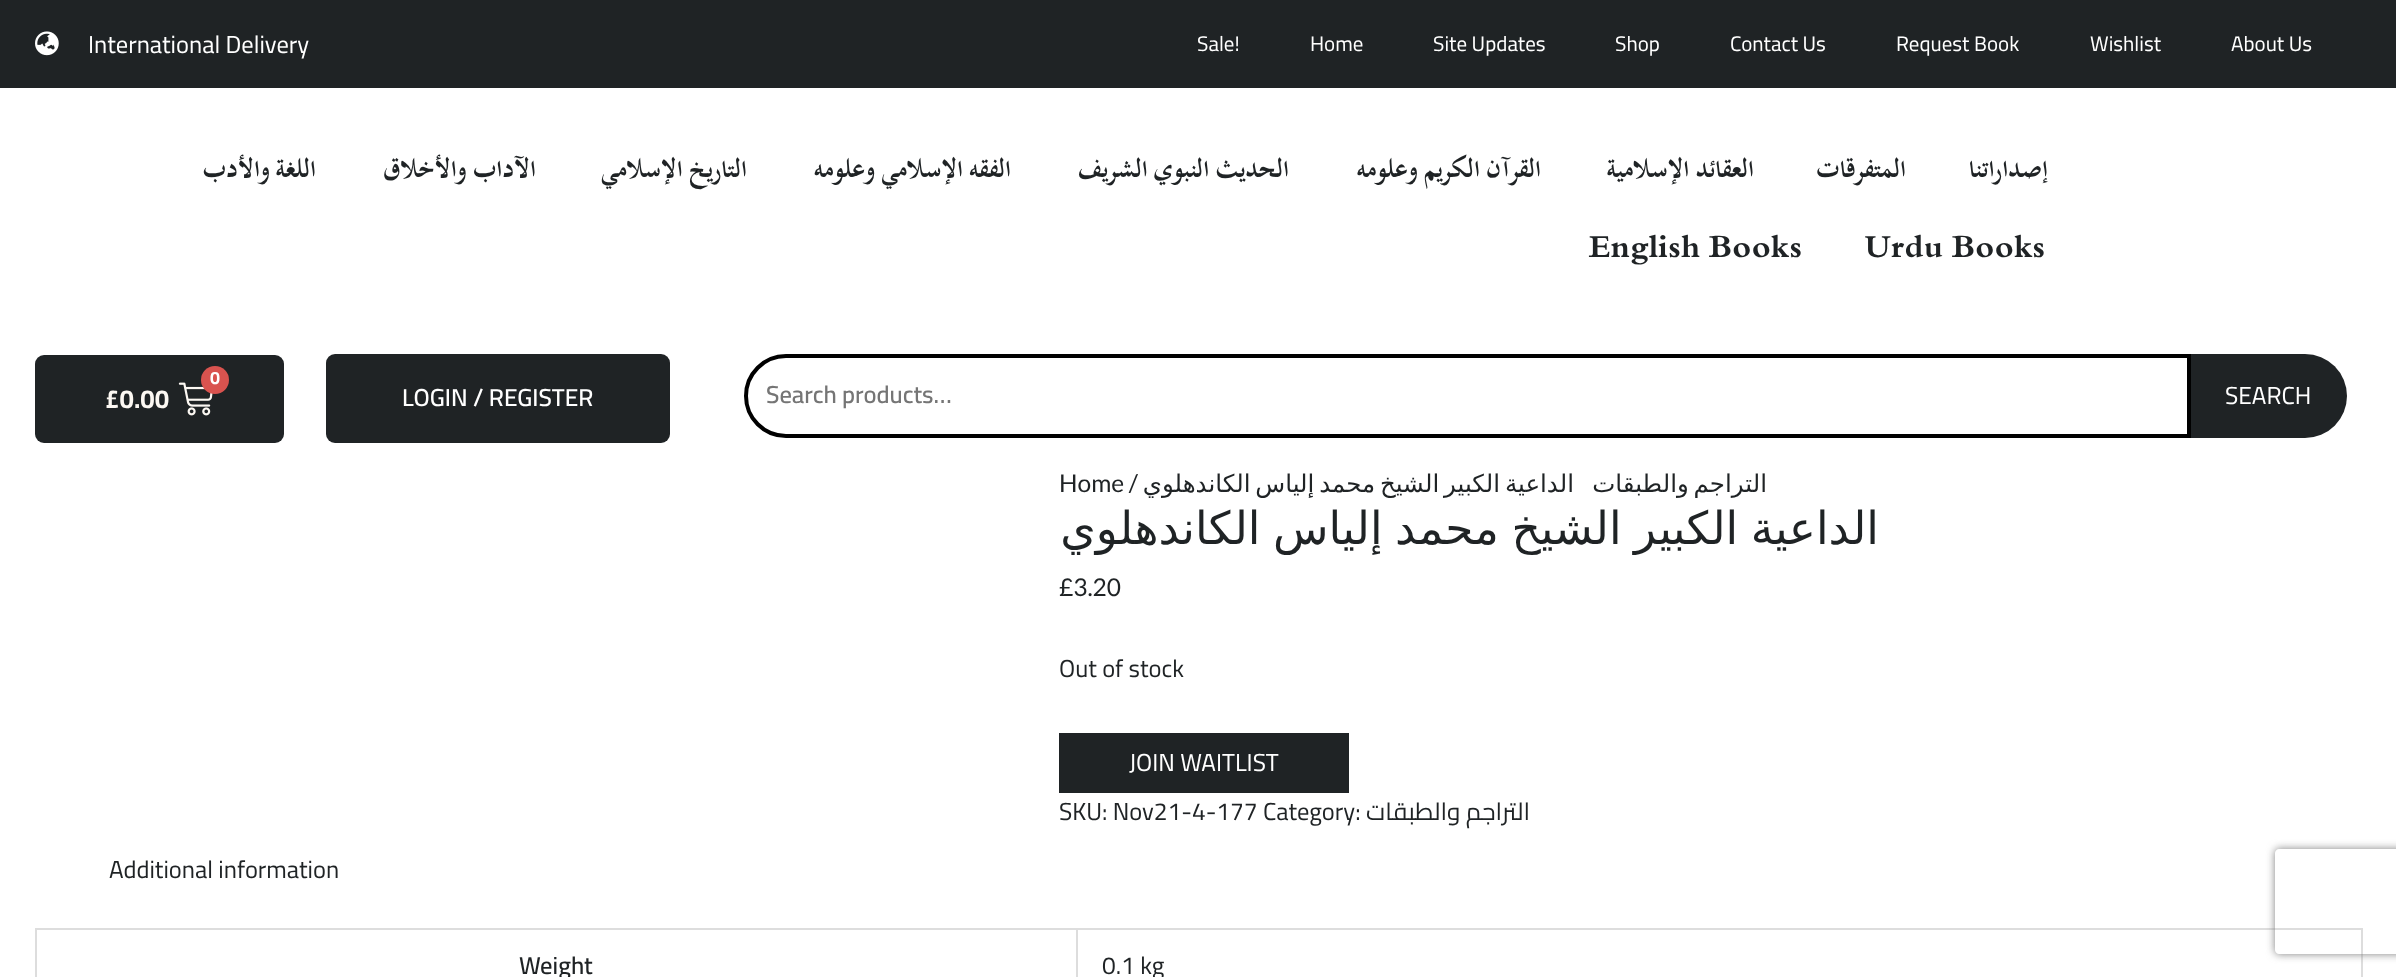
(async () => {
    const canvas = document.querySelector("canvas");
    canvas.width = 2396;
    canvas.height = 977;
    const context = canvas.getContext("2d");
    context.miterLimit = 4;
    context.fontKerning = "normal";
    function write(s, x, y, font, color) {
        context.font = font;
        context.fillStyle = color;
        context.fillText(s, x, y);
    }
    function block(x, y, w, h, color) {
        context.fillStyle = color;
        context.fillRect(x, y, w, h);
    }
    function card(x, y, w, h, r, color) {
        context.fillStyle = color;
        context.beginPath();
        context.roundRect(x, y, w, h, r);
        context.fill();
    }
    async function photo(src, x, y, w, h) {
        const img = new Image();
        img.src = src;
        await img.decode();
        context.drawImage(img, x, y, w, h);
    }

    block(0, 0, 2396, 977, "rgb(255, 255, 255)");
    block(35, 928, 2328, 2, "rgb(221, 221, 221)");
    block(2361, 929, 2, 48, "rgb(221, 221, 221)");
    context.save();
    context.beginPath();
    context.moveTo(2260, 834);
    context.lineTo(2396, 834);
    context.lineTo(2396, 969);
    context.lineTo(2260, 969);
    context.closePath();
    context.moveTo(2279, 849);
    context.lineTo(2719, 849);
    context.bezierCurveTo(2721, 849, 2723, 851, 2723, 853);
    context.lineTo(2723, 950);
    context.bezierCurveTo(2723, 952, 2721, 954, 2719, 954);
    context.lineTo(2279, 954);
    context.bezierCurveTo(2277, 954, 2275, 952, 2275, 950);
    context.lineTo(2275, 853);
    context.bezierCurveTo(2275, 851, 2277, 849, 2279, 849);
    context.closePath();
    context.clip("evenodd");
    context.fillStyle = "rgb(128, 128, 128)";
    context.filter = "blur(4.5px)";
    context.beginPath();
    context.roundRect(2275, 849, 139, 105, 4);
    context.fill();
    context.filter = "none";
    context.restore();
    block(0, 0, 2396, 88, "rgb(31, 35, 37)");
    write("About Us", 2231, 51, "21px Cairo", "rgb(255, 255, 255)");
    write("Wishlist", 2090, 51, "21px Cairo", "rgb(255, 255, 255)");
    write("Request Book", 1896, 51, "21px Cairo", "rgb(255, 255, 255)");
    write("Contact Us", 1730, 51, "21px Cairo", "rgb(255, 255, 255)");
    write("Shop", 1615, 51, "21px Cairo", "rgb(255, 255, 255)");
    write("Site Updates", 1433, 51, "21px Cairo", "rgb(255, 255, 255)");
    write("Home", 1310, 51, "21px Cairo", "rgb(255, 255, 255)");
    write("Sale!", 1197, 51, "21px Cairo", "rgb(255, 255, 255)");
    write("International Delivery", 88, 53, "24.5px Cairo", "rgb(255, 255, 255)");
    await photo("media/1.png", 35, 31, 24, 25);
    context.letterSpacing = "0.35px";
    context.direction = "rtl";
    write("إصداراتنا", 2048, 179, "bold 33.25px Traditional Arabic", "rgb(31, 35, 37)");
    write("المتفرقات", 1906, 179, "bold 33.25px Traditional Arabic", "rgb(31, 35, 37)");
    context.wordSpacing = "-2px";
    write("العقائد الإسلامية", 1754, 179, "bold 33.25px Traditional Arabic", "rgb(31, 35, 37)");
    write("القرآن الكريم وعلومه", 1541, 179, "bold 33.25px Traditional Arabic", "rgb(31, 35, 37)");
    write("الحديث النبوي الشريف", 1289, 179, "bold 33.25px Traditional Arabic", "rgb(31, 35, 37)");
    write("الفقه الإسلامي وعلومه", 1011, 179, "bold 33.25px Traditional Arabic", "rgb(31, 35, 37)");
    write("التاريخ الإسلامي", 747, 179, "bold 33.25px Traditional Arabic", "rgb(31, 35, 37)");
    write("الآداب والأخلاق", 536, 179, "bold 33.25px Traditional Arabic", "rgb(31, 35, 37)");
    write("اللغة والأدب", 316, 179, "bold 33.25px Traditional Arabic", "rgb(31, 35, 37)");
    context.wordSpacing = "0px";
    context.direction = "ltr";
    write("Urdu Books", 1865, 259, "bold 33.25px Traditional Arabic", "rgb(31, 35, 37)");
    write("English Books", 1589, 259, "bold 33.25px Traditional Arabic", "rgb(31, 35, 37)");
    context.beginPath();
    context.roundRect(2191, 354, 156, 84, [0, 42, 42, 0]);
    context.fill();
    context.letterSpacing = "0px";
    write("SEARCH", 2225, 404, "24.5px Cairo", "rgb(255, 255, 255)");
    context.beginPath();
    context.roundRect(746, 356, 1443, 80, [40, 0, 0, 40]);
    context.strokeStyle = "rgb(0, 0, 0)";
    context.lineWidth = 4;
    context.stroke();
    write("Search products…", 766, 403, "600 24.5px Cairo", "rgb(117, 117, 117)");
    card(326, 354, 344, 89, 9, "rgb(31, 35, 37)");
    write("LOGIN / REGISTER", 402, 406, "600 24.5px Cairo", "rgb(255, 255, 255)");
    card(35, 355, 249, 88, 9, "rgb(31, 35, 37)");
    await photo("media/2.png", 178, 382, 35, 34);
    context.fillStyle = "rgb(217, 83, 79)";
    context.beginPath();
    context.arc(215, 380, 14, 0, Math.PI * 2);
    context.fill();
    write("0", 210, 384, "bold 18px Cairo", "rgb(255, 255, 255)");
    write("£0.00", 105, 408, "bold 26px Cairo", "rgb(252, 248, 243)");
    context.wordSpacing = "-3px";
    context.direction = "rtl";
    write("التراجم والطبقات", 1767, 492, "24.5px DejaVu Sans", "rgb(31, 35, 37)");
    write("الداعية الكبير الشيخ محمد إلياس الكاندهلوي", 1574, 492, "24.5px DejaVu Sans", "rgb(31, 35, 37)");
    context.wordSpacing = "0px";
    context.direction = "ltr";
    write("Home /", 1059, 492, "24.5px Lato", "rgb(31, 35, 37)");
    context.wordSpacing = "-2px";
    context.direction = "rtl";
    write("الداعية الكبير الشيخ محمد إلياس الكاندهلوي", 1879, 544, "45.5px DejaVu Sans", "rgb(31, 35, 37)");
    context.wordSpacing = "0px";
    context.direction = "ltr";
    write("£3.20", 1059, 596, "24.5px Lato", "rgb(31, 35, 37)");
    write("Out of stock", 1059, 677, "24.5px Cairo", "rgb(31, 35, 37)");
    block(1059, 733, 290, 60, "rgb(31, 35, 37)");
    write("JOIN WAITLIST", 1129, 771, "24.5px Cairo", "rgb(255, 255, 255)");
    context.direction = "rtl";
    write("التراجم والطبقات", 1530, 820, "24.5px Cairo", "rgb(31, 35, 37)");
    context.direction = "ltr";
    write("SKU: Nov21-4-177 Category:", 1059, 820, "24.5px Cairo", "rgb(31, 35, 37)");
    write("Additional information", 109, 878, "24.5px Cairo", "rgb(31, 35, 37)");
    block(35, 928, 2, 49, "rgb(221, 221, 221)");
    write("0.1 kg", 1102, 974, "24.5px Cairo", "rgb(31, 35, 37)");
    block(1076, 929, 2, 48, "rgb(221, 221, 221)");
    write("Weight", 519, 974, "600 24.5px Cairo", "rgb(31, 35, 37)");
})();
